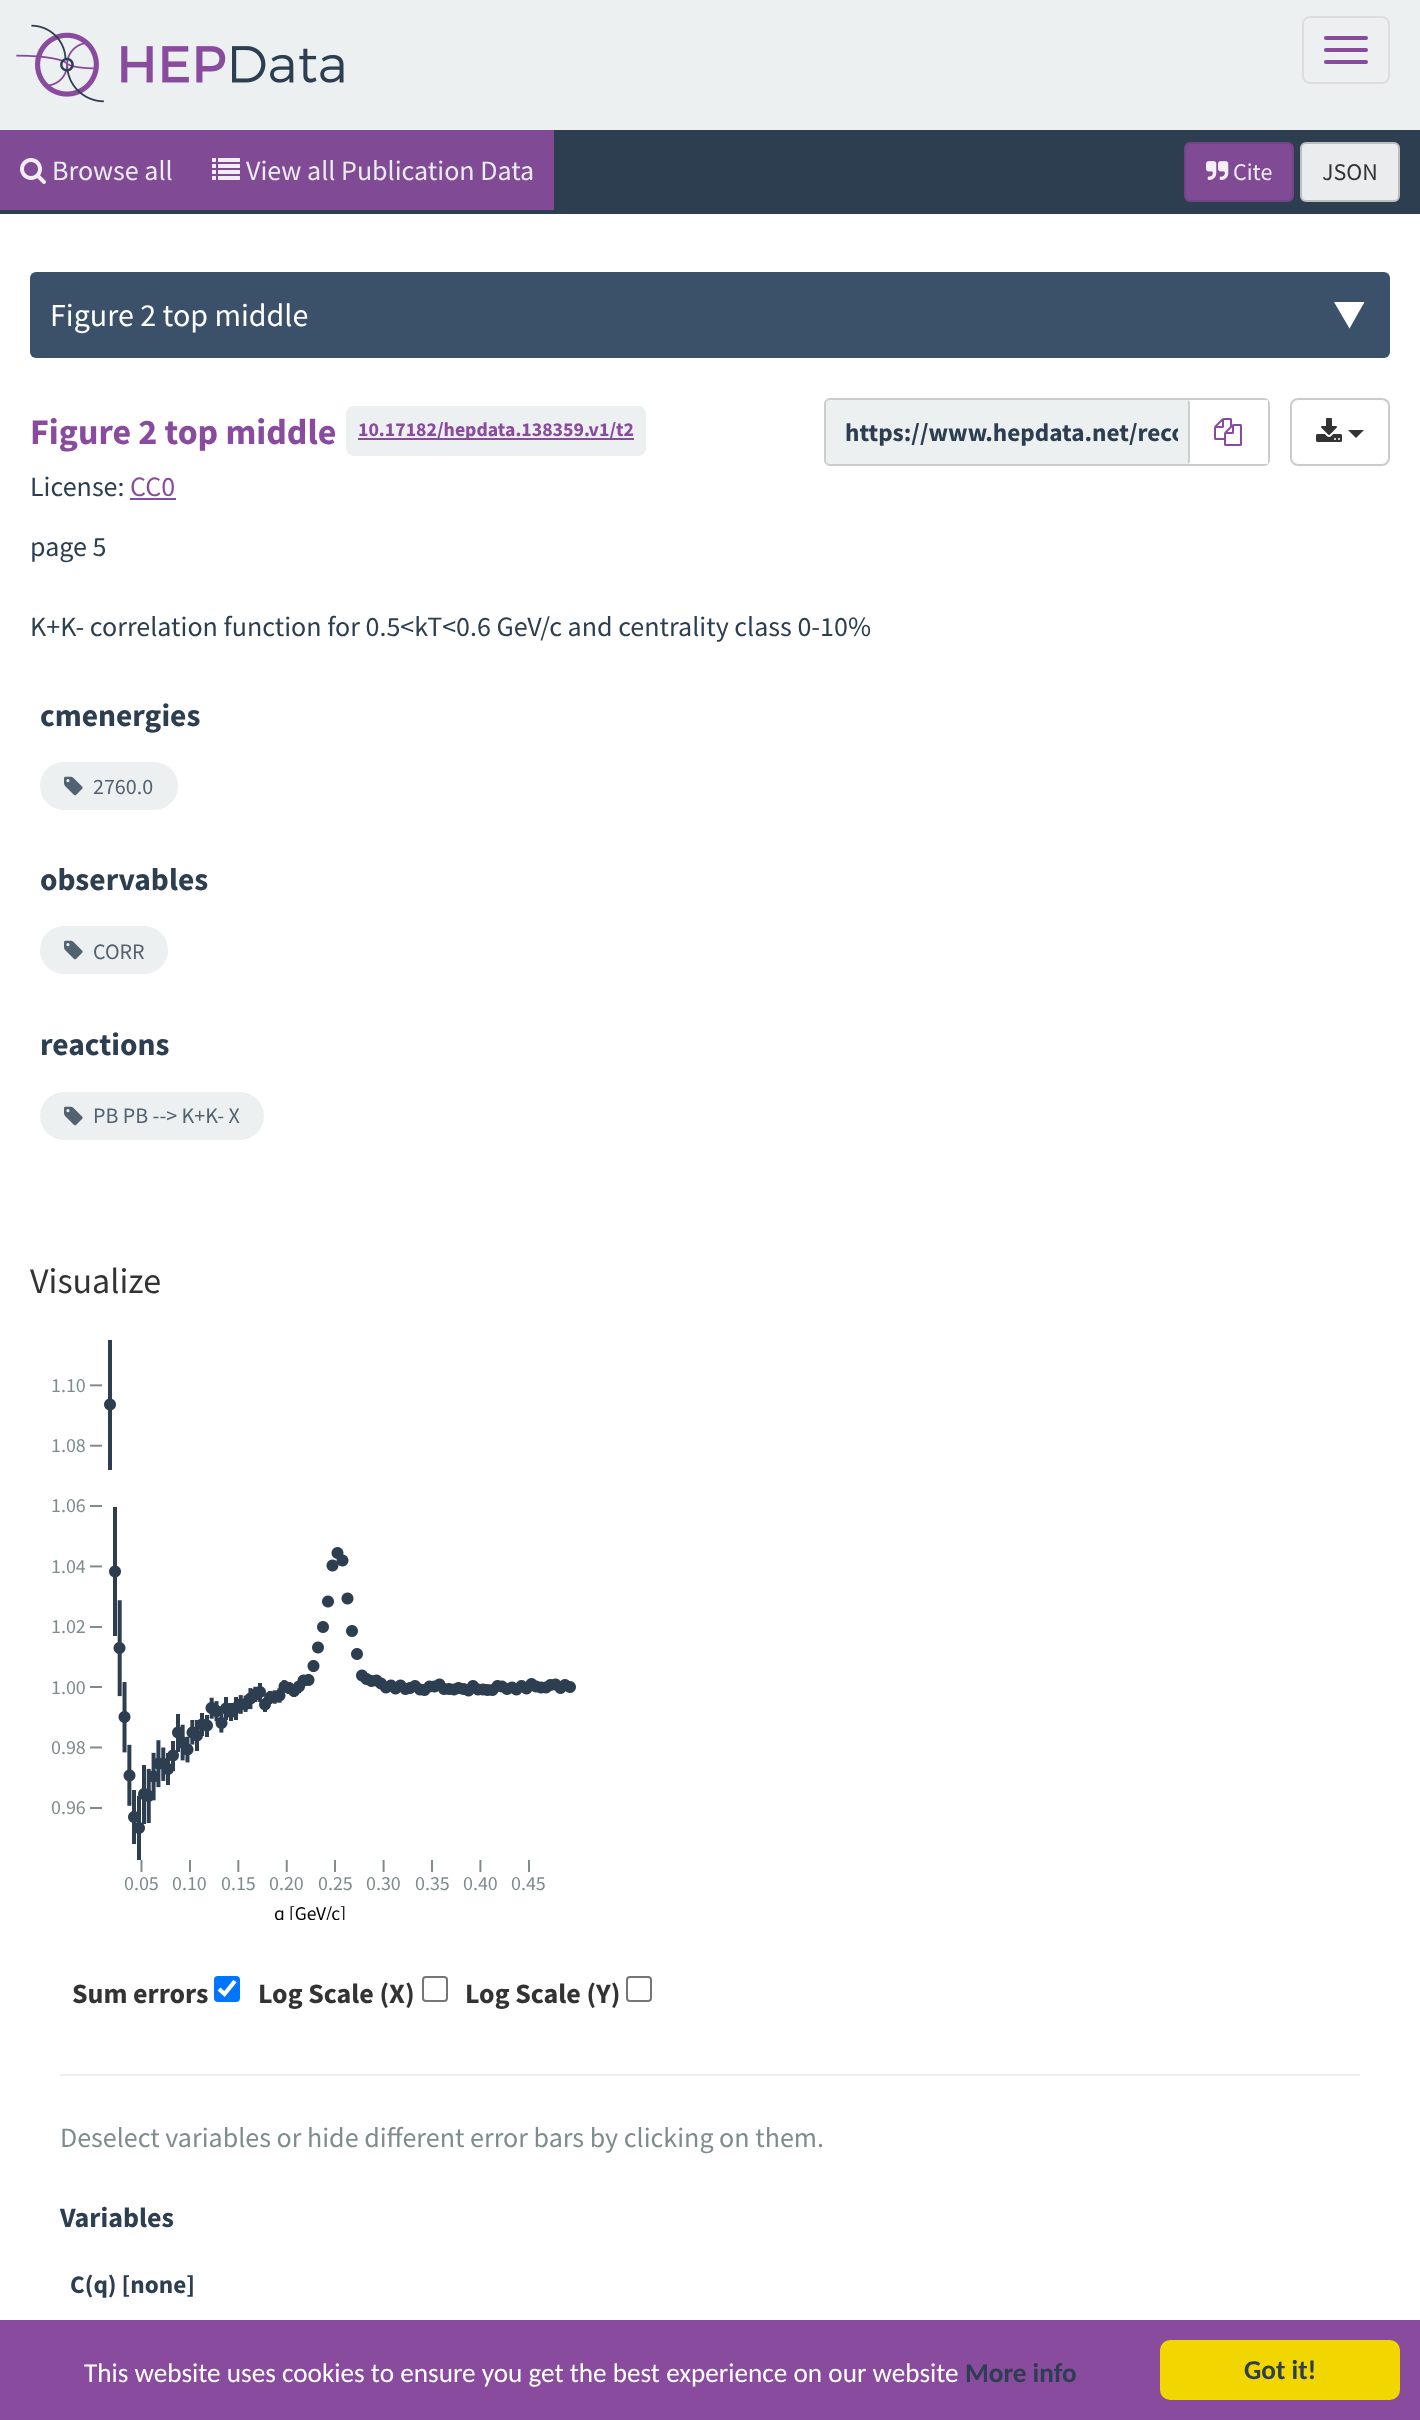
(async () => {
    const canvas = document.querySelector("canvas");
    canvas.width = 1420;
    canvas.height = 2420;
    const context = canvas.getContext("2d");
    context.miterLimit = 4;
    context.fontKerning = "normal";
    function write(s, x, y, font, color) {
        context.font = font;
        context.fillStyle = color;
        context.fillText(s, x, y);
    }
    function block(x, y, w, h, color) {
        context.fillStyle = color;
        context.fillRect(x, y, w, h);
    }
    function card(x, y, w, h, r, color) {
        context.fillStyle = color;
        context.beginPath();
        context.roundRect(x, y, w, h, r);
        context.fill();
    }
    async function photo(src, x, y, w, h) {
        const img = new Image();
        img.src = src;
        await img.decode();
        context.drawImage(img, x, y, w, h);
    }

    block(0, 0, 1420, 2420, "rgb(255, 255, 255)");
    block(0, 0, 1420, 130, "rgb(236, 240, 241)");
    await photo("media/1.png", 16, 24, 328, 79);
    context.beginPath();
    context.roundRect(1303, 17, 86, 66, 7);
    context.strokeStyle = "rgb(221, 221, 221)";
    context.lineWidth = 2;
    context.stroke();
    card(1324, 36, 44, 4, 2, "rgb(137, 75, 157)");
    card(1324, 48, 44, 4, 2, "rgb(137, 75, 157)");
    card(1324, 60, 44, 4, 2, "rgb(137, 75, 157)");
    block(0, 130, 1420, 84, "rgb(44, 62, 80)");
    block(0, 130, 554, 80, "rgb(128, 74, 149)");
    await photo("media/2.png", 20, 158, 26, 26);
    write("Browse all", 52, 180, "28px Source Sans Pro", "rgb(234, 236, 238)");
    await photo("media/3.png", 212, 158, 28, 22);
    write("View all Publication Data", 246, 180, "28px Source Sans Pro", "rgb(234, 236, 238)");
    context.fillStyle = "rgb(128, 74, 149)";
    context.beginPath();
    context.roundRect(1185, 143, 108, 58, 5);
    context.fill();
    context.strokeStyle = "rgb(114, 67, 134)";
    context.stroke();
    await photo("media/4.png", 1206, 161, 23, 19);
    write("Cite", 1233, 180, "24px Source Sans Pro", "rgb(234, 236, 238)");
    context.beginPath();
    context.roundRect(1301, 143, 98, 58, 5);
    context.fill();
    context.strokeStyle = "rgb(188, 190, 192)";
    context.stroke();
    write("JSON", 1322, 180, "24px Source Sans Pro", "rgb(51, 51, 51)");
    card(30, 272, 1360, 86, 6, "rgb(59, 81, 105)");
    context.fillStyle = "rgb(255, 255, 255)";
    context.beginPath();
    context.moveTo(1364.5, 302);
    context.lineTo(1349.5, 328.5);
    context.lineTo(1334, 302);
    context.closePath();
    context.fill();
    write("Figure 2 top middle", 50, 326, "32px Source Sans Pro", "rgb(255, 255, 255)");
    write("Figure 2 top middle", 30, 444, "bold 36px Source Sans Pro", "rgb(137, 75, 157)");
    card(346, 406, 300, 50, 8, "rgb(236, 240, 241)");
    block(358, 438, 276, 2, "rgb(137, 75, 157)");
    write("10.17182/hepdata.138359.v1/t2", 358, 436, "bold 19.75px Source Sans Pro", "rgb(137, 75, 157)");
    context.fillStyle = "rgb(236, 240, 241)";
    context.beginPath();
    context.roundRect(825, 399, 444, 66, 5);
    context.fill();
    context.strokeStyle = "rgb(204, 204, 204)";
    context.stroke();
    context.save();
    context.beginPath();
    context.rect(846, 416, 332, 30);
    context.clip();
    write("https://www.hepdata.net/reco", 845, 441, "bold 25.25px Source Sans Pro", "rgb(44, 62, 80)");
    context.restore();
    block(1188, 400, 80, 64, "rgb(255, 255, 255)");
    context.fillStyle = "rgb(204, 204, 204)";
    context.beginPath();
    context.moveTo(1188, 464);
    context.lineTo(1188, 400);
    context.lineTo(1190, 402);
    context.lineTo(1190, 462);
    context.closePath();
    context.fill();
    await photo("media/5.png", 1214, 418, 28, 28);
    context.beginPath();
    context.roundRect(1291, 399, 98, 66, 7);
    context.stroke();
    await photo("media/6.png", 1316, 418, 26, 24);
    context.fillStyle = "rgb(51, 51, 51)";
    context.beginPath();
    context.moveTo(1348, 430);
    context.lineTo(1364, 430);
    context.lineTo(1356, 438);
    context.closePath();
    context.fill();
    write("License:", 30, 496, "28px Source Sans Pro", "rgb(44, 62, 80)");
    write("CC0", 130, 496, "28px Source Sans Pro", "rgb(137, 75, 157)");
    block(130, 498, 46, 2, "rgb(137, 75, 157)");
    write("page 5", 30, 556, "28px Source Sans Pro", "rgb(44, 62, 80)");
    write("K+K- correlation function for 0.5<kT<0.6 GeV/c and centrality class 0-10%", 30, 636, "28px Source Sans Pro", "rgb(44, 62, 80)");
    write("cmenergies", 40, 726, "bold 31.5px Source Sans Pro", "rgb(44, 62, 80)");
    card(40, 762, 138, 48, 24, "rgb(236, 240, 241)");
    await photo("media/7.png", 64, 776, 19, 20);
    write("2760.0", 93, 794, "22px Source Sans Pro", "rgb(82, 98, 112)");
    write("observables", 40, 890, "bold 31.5px Source Sans Pro", "rgb(44, 62, 80)");
    card(40, 926, 128, 48, 24, "rgb(236, 240, 241)");
    await photo("media/7.png", 64, 940, 19, 20);
    write("CORR", 93, 959, "22px Source Sans Pro", "rgb(82, 98, 112)");
    write("reactions", 40, 1055, "bold 31.5px Source Sans Pro", "rgb(44, 62, 80)");
    card(40, 1092, 224, 48, 24, "rgb(236, 240, 241)");
    await photo("media/7.png", 64, 1106, 19, 20);
    write("PB PB --> K+K- X", 93, 1123, "22px Source Sans Pro", "rgb(82, 98, 112)");
    write("Visualize", 30, 1293, "36px Source Sans Pro", "rgb(51, 51, 51)");
    write("1.10", 51, 1392, "20px Source Sans Pro", "rgb(127, 140, 141)");
    await photo("media/8.png", 90, 1340, 486, 532);
    write("1.08", 51, 1452, "20px Source Sans Pro", "rgb(127, 140, 141)");
    write("1.06", 51, 1512, "20px Source Sans Pro", "rgb(127, 140, 141)");
    write("1.04", 51, 1573, "20px Source Sans Pro", "rgb(127, 140, 141)");
    write("1.02", 51, 1633, "20px Source Sans Pro", "rgb(127, 140, 141)");
    write("1.00", 51, 1694, "20px Source Sans Pro", "rgb(127, 140, 141)");
    write("0.98", 51, 1754, "20px Source Sans Pro", "rgb(127, 140, 141)");
    write("0.96", 51, 1814, "20px Source Sans Pro", "rgb(127, 140, 141)");
    write("0.05", 124, 1890, "20px Source Sans Pro", "rgb(127, 140, 141)");
    write("0.10", 172, 1890, "20px Source Sans Pro", "rgb(127, 140, 141)");
    write("0.15", 221, 1890, "20px Source Sans Pro", "rgb(127, 140, 141)");
    write("0.20", 269, 1890, "20px Source Sans Pro", "rgb(127, 140, 141)");
    write("0.25", 318, 1890, "20px Source Sans Pro", "rgb(127, 140, 141)");
    write("0.30", 366, 1890, "20px Source Sans Pro", "rgb(127, 140, 141)");
    write("0.35", 415, 1890, "20px Source Sans Pro", "rgb(127, 140, 141)");
    write("0.40", 463, 1890, "20px Source Sans Pro", "rgb(127, 140, 141)");
    write("0.45", 511, 1890, "20px Source Sans Pro", "rgb(127, 140, 141)");
    context.save();
    context.beginPath();
    context.rect(30, 1320, 600, 600);
    context.clip();
    write("q [GeV/c]", 274, 1920, "19.5px Source Sans Pro", "rgb(0, 0, 0)");
    context.restore();
    write("Sum errors", 72, 2003, "bold 28px Source Sans Pro", "rgb(51, 51, 51)");
    card(214, 1976, 26, 26, 4, "rgb(0, 117, 255)");
    context.beginPath();
    context.moveTo(219, 1989);
    context.lineTo(224.5, 1994);
    context.lineTo(235, 1981);
    context.strokeStyle = "rgb(255, 255, 255)";
    context.lineWidth = 4.2;
    context.stroke();
    write("Log Scale (X)", 258, 2003, "bold 28px Source Sans Pro", "rgb(51, 51, 51)");
    context.beginPath();
    context.roundRect(423, 1977, 24, 24, 3);
    context.strokeStyle = "rgb(118, 118, 118)";
    context.lineWidth = 2;
    context.stroke();
    write("Log Scale (Y)", 465, 2003, "bold 28px Source Sans Pro", "rgb(51, 51, 51)");
    context.beginPath();
    context.roundRect(627, 1977, 24, 24, 3);
    context.stroke();
    block(60, 2074, 1300, 2, "rgb(238, 238, 238)");
    write("Deselect variables or hide different error bars by clicking on them.", 60, 2147, "28px Source Sans Pro", "rgb(127, 140, 141)");
    write("Variables", 60, 2227, "bold 28px Source Sans Pro", "rgb(44, 62, 80)");
    write("C(q) [none]", 70, 2293, "bold 25.25px Source Sans Pro", "rgb(44, 62, 80)");
    block(0, 2320, 1420, 100, "rgb(137, 75, 157)");
    write("This website uses cookies to ensure you get the best experience on our website", 84, 2382, "27.2px Carlito", "rgb(255, 255, 255)");
    write("More info", 965, 2382, "bold 27.2px Carlito", "rgb(44, 62, 80)");
    card(1160, 2340, 240, 60, 10, "rgb(241, 214, 0)");
    write("Got it!", 1244, 2379, "bold 27.2px Carlito", "rgb(44, 62, 80)");
})();
